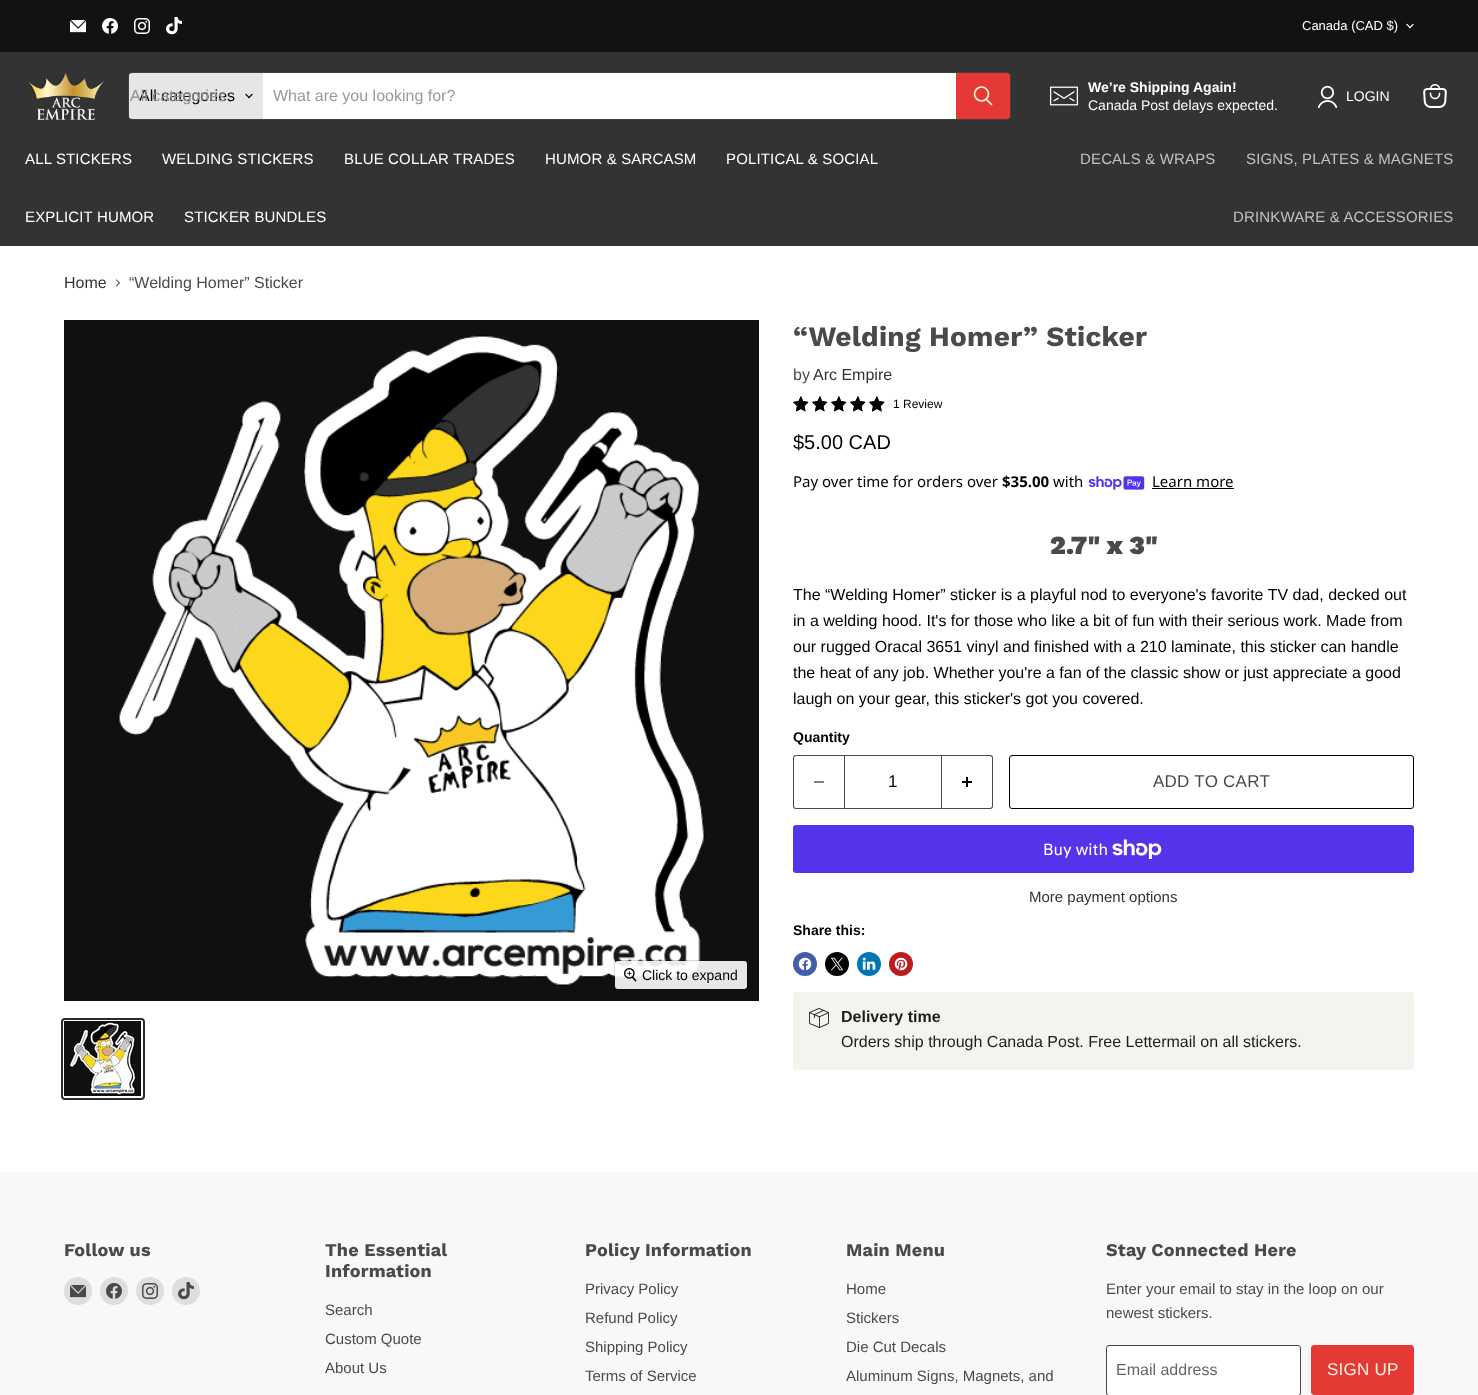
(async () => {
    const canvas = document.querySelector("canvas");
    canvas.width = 1478;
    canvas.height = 1395;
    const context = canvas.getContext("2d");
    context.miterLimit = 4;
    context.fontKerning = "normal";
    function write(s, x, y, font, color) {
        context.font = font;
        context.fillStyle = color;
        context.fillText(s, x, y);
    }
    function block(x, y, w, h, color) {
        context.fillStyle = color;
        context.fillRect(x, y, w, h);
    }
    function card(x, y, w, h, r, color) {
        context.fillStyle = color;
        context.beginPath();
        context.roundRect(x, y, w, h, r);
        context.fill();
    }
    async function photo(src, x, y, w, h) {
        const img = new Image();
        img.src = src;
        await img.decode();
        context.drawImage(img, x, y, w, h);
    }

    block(0, 0, 1478, 1395, "rgb(255, 255, 255)");
    block(0, 0, 1478, 52, "rgb(18, 18, 18)");
    block(0, 52, 1478, 1, "rgb(53, 53, 53)");
    await photo("media/1.png", 70, 20, 16, 13);
    await photo("media/2.png", 102, 18, 16, 16);
    await photo("media/3.png", 134, 18, 16, 16);
    await photo("media/4.png", 166, 17, 16, 18);
    write("Canada (CAD $)", 1302, 30, "13px Liberation Sans", "rgb(255, 255, 255)");
    await photo("media/5.png", 1406, 23, 8, 6);
    block(0, 53, 1478, 193, "rgb(51, 51, 51)");
    await photo("media/6.png", 27, 73, 77, 47);
    context.beginPath();
    context.roundRect(128.5, 72.5, 882, 47, 3.5);
    context.strokeStyle = "rgb(66, 66, 66)";
    context.stroke();
    context.fillStyle = "rgb(230, 230, 230)";
    context.beginPath();
    context.roundRect(129, 73, 134, 46, [3, 0, 0, 3]);
    context.fill();
    write("All categories", 139, 101, "16px Liberation Sans", "rgb(0, 0, 0)");
    write("All categories", 130, 101, "16px Liberation Sans", "rgb(143, 143, 143)");
    await photo("media/7.png", 245, 93, 8, 6);
    block(263, 73, 693, 46, "rgb(255, 255, 255)");
    write("What are you looking for?", 273, 101, "16px Liberation Sans", "rgb(153, 153, 153)");
    context.fillStyle = "rgb(229, 57, 53)";
    context.beginPath();
    context.roundRect(956.5, 73.5, 53, 45, [0, 2.5, 2.5, 0]);
    context.fill();
    context.strokeStyle = "rgb(229, 57, 53)";
    context.stroke();
    context.beginPath();
    context.moveTo(991.5, 104.5);
    context.lineTo(986.5, 99.5);
    context.strokeStyle = "rgb(245, 245, 220)";
    context.lineWidth = 1.7;
    context.lineCap = "round";
    context.stroke();
    context.beginPath();
    context.arc(981.5, 94, 7, 0, Math.PI * 2);
    context.stroke();
    await photo("media/8.png", 1050, 86, 28, 20);
    write("We’re Shipping Again!", 1088, 92, "bold 14px Liberation Sans", "rgb(255, 255, 255)");
    write("Canada Post delays expected.", 1088, 110, "14px Liberation Sans", "rgb(255, 255, 255)");
    await photo("media/9.png", 1317, 85, 21, 23);
    write("LOGIN", 1346, 101, "14px Liberation Sans", "rgb(255, 255, 255)");
    await photo("media/10.png", 1423, 84, 24, 24);
    context.letterSpacing = "0.15px";
    write("ALL STICKERS", 25, 164, "15px Liberation Sans", "rgb(255, 255, 255)");
    write("WELDING STICKERS", 162, 164, "15px Liberation Sans", "rgb(255, 255, 255)");
    write("BLUE COLLAR TRADES", 344, 164, "15px Liberation Sans", "rgb(255, 255, 255)");
    write("HUMOR & SARCASM", 545, 164, "15px Liberation Sans", "rgb(255, 255, 255)");
    write("POLITICAL & SOCIAL", 726, 164, "15px Liberation Sans", "rgb(255, 255, 255)");
    write("EXPLICIT HUMOR", 25, 222, "15px Liberation Sans", "rgb(255, 255, 255)");
    write("STICKER BUNDLES", 184, 222, "15px Liberation Sans", "rgb(255, 255, 255)");
    write("DECALS & WRAPS", 1080, 164, "15px Liberation Sans", "rgb(194, 194, 194)");
    write("SIGNS, PLATES & MAGNETS", 1246, 164, "15px Liberation Sans", "rgb(194, 194, 194)");
    write("DRINKWARE & ACCESSORIES", 1233, 222, "15px Liberation Sans", "rgb(194, 194, 194)");
    context.letterSpacing = "0px";
    write("Home", 64, 288, "16px Liberation Sans", "rgb(51, 51, 51)");
    await photo("media/11.png", 115, 279, 5, 8);
    write("“Welding Homer” Sticker", 129, 288, "16px Liberation Sans", "rgb(74, 74, 74)");
    await photo("media/12.png", 64, 320, 695, 681);
    context.beginPath();
    context.roundRect(614.5, 960.5, 133, 29, 3.5);
    context.strokeStyle = "rgba(0, 0, 0, 0.15)";
    context.lineWidth = 1;
    context.stroke();
    card(615, 961, 132, 28, 3, "rgba(255, 255, 255, 0.9)");
    await photo("media/13.png", 624, 968, 13, 14);
    write("Click to expand", 642, 980, "14px Liberation Sans", "rgb(0, 0, 0)");
    context.beginPath();
    context.roundRect(62, 1019, 82, 80, 3);
    context.strokeStyle = "rgb(43, 43, 43)";
    context.lineWidth = 2;
    context.stroke();
    await photo("media/14.png", 64, 1021, 77, 75);
    context.letterSpacing = "0.25px";
    write("“Welding Homer” Sticker", 793, 346, "bold 28px Work Sans", "rgb(74, 74, 74)");
    context.letterSpacing = "0px";
    write("by", 793, 380, "16px Liberation Sans", "rgb(74, 74, 74)");
    write("Arc Empire", 813, 380, "16px Liberation Sans", "rgb(51, 51, 51)");
    context.fillStyle = "rgb(0, 0, 0)";
    context.beginPath();
    context.moveTo(801, 396);
    context.lineTo(798.5, 401);
    context.lineTo(793, 402);
    context.lineTo(797, 406);
    context.lineTo(796, 411.5);
    context.lineTo(801, 409);
    context.lineTo(805.5, 411.5);
    context.lineTo(804.5, 406);
    context.lineTo(808.5, 402);
    context.lineTo(803, 401);
    context.closePath();
    context.fill();
    context.save();
    context.beginPath();
    context.moveTo(801, 396);
    context.lineTo(803, 401);
    context.lineTo(808.5, 402);
    context.lineTo(804.5, 406);
    context.lineTo(805.5, 411.5);
    context.lineTo(801, 409);
    context.lineTo(796, 411.5);
    context.lineTo(797, 406);
    context.lineTo(793, 402);
    context.lineTo(798.5, 401);
    context.closePath();
    context.clip();
    context.beginPath();
    context.moveTo(801, 396);
    context.lineTo(803, 401);
    context.lineTo(808.5, 402);
    context.lineTo(804.5, 406);
    context.lineTo(805.5, 411.5);
    context.lineTo(801, 409);
    context.lineTo(796, 411.5);
    context.lineTo(797, 406);
    context.lineTo(793, 402);
    context.lineTo(798.5, 401);
    context.closePath();
    context.strokeStyle = "rgb(0, 0, 0)";
    context.lineWidth = 2.2;
    context.lineJoin = "round";
    context.stroke();
    context.restore();
    context.beginPath();
    context.moveTo(820, 396);
    context.lineTo(817.5, 401);
    context.lineTo(812, 402);
    context.lineTo(816, 406);
    context.lineTo(815, 411.5);
    context.lineTo(820, 409);
    context.lineTo(824.5, 411.5);
    context.lineTo(823.5, 406);
    context.lineTo(827.5, 402);
    context.lineTo(822, 401);
    context.closePath();
    context.fill();
    context.save();
    context.beginPath();
    context.moveTo(820, 396);
    context.lineTo(822, 401);
    context.lineTo(827.5, 402);
    context.lineTo(823.5, 406);
    context.lineTo(824.5, 411.5);
    context.lineTo(820, 409);
    context.lineTo(815, 411.5);
    context.lineTo(816, 406);
    context.lineTo(812, 402);
    context.lineTo(817.5, 401);
    context.closePath();
    context.clip();
    context.beginPath();
    context.moveTo(820, 396);
    context.lineTo(822, 401);
    context.lineTo(827.5, 402);
    context.lineTo(823.5, 406);
    context.lineTo(824.5, 411.5);
    context.lineTo(820, 409);
    context.lineTo(815, 411.5);
    context.lineTo(816, 406);
    context.lineTo(812, 402);
    context.lineTo(817.5, 401);
    context.closePath();
    context.strokeStyle = "rgb(0, 0, 0)";
    context.lineWidth = 2.2;
    context.lineJoin = "round";
    context.stroke();
    context.restore();
    context.beginPath();
    context.moveTo(839, 396);
    context.lineTo(836.5, 401);
    context.lineTo(831, 402);
    context.lineTo(835, 406);
    context.lineTo(834, 411.5);
    context.lineTo(839, 409);
    context.lineTo(843.5, 411.5);
    context.lineTo(842.5, 406);
    context.lineTo(846.5, 402);
    context.lineTo(841, 401);
    context.closePath();
    context.fill();
    context.save();
    context.beginPath();
    context.moveTo(839, 396);
    context.lineTo(841, 401);
    context.lineTo(846.5, 402);
    context.lineTo(842.5, 406);
    context.lineTo(843.5, 411.5);
    context.lineTo(839, 409);
    context.lineTo(834, 411.5);
    context.lineTo(835, 406);
    context.lineTo(831, 402);
    context.lineTo(836.5, 401);
    context.closePath();
    context.clip();
    context.beginPath();
    context.moveTo(839, 396);
    context.lineTo(841, 401);
    context.lineTo(846.5, 402);
    context.lineTo(842.5, 406);
    context.lineTo(843.5, 411.5);
    context.lineTo(839, 409);
    context.lineTo(834, 411.5);
    context.lineTo(835, 406);
    context.lineTo(831, 402);
    context.lineTo(836.5, 401);
    context.closePath();
    context.strokeStyle = "rgb(0, 0, 0)";
    context.lineWidth = 2.2;
    context.lineJoin = "round";
    context.stroke();
    context.restore();
    context.beginPath();
    context.moveTo(858, 396);
    context.lineTo(855.5, 401);
    context.lineTo(850, 402);
    context.lineTo(854, 406);
    context.lineTo(853, 411.5);
    context.lineTo(858, 409);
    context.lineTo(862.5, 411.5);
    context.lineTo(861.5, 406);
    context.lineTo(865.5, 402);
    context.lineTo(860, 401);
    context.closePath();
    context.fill();
    context.save();
    context.beginPath();
    context.moveTo(858, 396);
    context.lineTo(860, 401);
    context.lineTo(865.5, 402);
    context.lineTo(861.5, 406);
    context.lineTo(862.5, 411.5);
    context.lineTo(858, 409);
    context.lineTo(853, 411.5);
    context.lineTo(854, 406);
    context.lineTo(850, 402);
    context.lineTo(855.5, 401);
    context.closePath();
    context.clip();
    context.beginPath();
    context.moveTo(858, 396);
    context.lineTo(860, 401);
    context.lineTo(865.5, 402);
    context.lineTo(861.5, 406);
    context.lineTo(862.5, 411.5);
    context.lineTo(858, 409);
    context.lineTo(853, 411.5);
    context.lineTo(854, 406);
    context.lineTo(850, 402);
    context.lineTo(855.5, 401);
    context.closePath();
    context.strokeStyle = "rgb(0, 0, 0)";
    context.lineWidth = 2.2;
    context.lineJoin = "round";
    context.stroke();
    context.restore();
    await photo("media/15.png", 869, 396, 16, 16);
    write("1 Review", 893, 408, "12px Liberation Sans", "rgb(0, 0, 0)");
    write("$5.00 CAD", 793, 449, "20px Liberation Sans", "rgb(0, 0, 0)");
    write("Pay over time for orders over", 793, 487, "15px Noto Sans", "rgb(0, 0, 0)");
    write("$35.00", 1002, 487, "bold 15px Noto Sans", "rgb(0, 0, 0)");
    write("with", 1053, 487, "15px Noto Sans", "rgb(0, 0, 0)");
    await photo("media/16.png", 1088, 476, 57, 14);
    write("Learn more", 1152, 487, "15px Noto Sans", "rgb(0, 0, 0)");
    block(1152, 488, 82, 1, "rgb(0, 0, 0)");
    context.letterSpacing = "0.25px";
    write("2.7\" x 3\"", 1050, 554, "900 26px Work Sans", "rgb(74, 74, 74)");
    context.letterSpacing = "0px";
    write("The “Welding Homer” sticker is a playful nod to everyone's favorite TV dad, decked out", 793, 600, "16px Liberation Sans", "rgb(0, 0, 0)");
    write("in a welding hood. It's for those who like a bit of fun with their serious work. Made from", 793, 626, "16px Liberation Sans", "rgb(0, 0, 0)");
    write("our rugged Oracal 3651 vinyl and finished with a 210 laminate, this sticker can handle", 793, 652, "16px Liberation Sans", "rgb(0, 0, 0)");
    write("the heat of any job. Whether you're a fan of the classic show or just appreciate a good", 793, 678, "16px Liberation Sans", "rgb(0, 0, 0)");
    write("laugh on your gear, this sticker's got you covered.", 793, 704, "16px Liberation Sans", "rgb(0, 0, 0)");
    write("Quantity", 793, 742, "bold 14px Liberation Sans", "rgb(0, 0, 0)");
    context.fillStyle = "rgb(74, 74, 74)";
    context.beginPath();
    context.moveTo(796, 755);
    context.lineTo(844, 755);
    context.lineTo(844, 809);
    context.lineTo(796, 809);
    context.bezierCurveTo(794, 809, 793, 808, 793, 806);
    context.lineTo(793, 758);
    context.bezierCurveTo(793, 756, 794, 755, 796, 755);
    context.closePath();
    context.moveTo(796, 756);
    context.lineTo(844, 756);
    context.lineTo(844, 808);
    context.lineTo(796, 808);
    context.bezierCurveTo(795, 808, 794, 807, 794, 806);
    context.lineTo(794, 758);
    context.bezierCurveTo(794, 757, 795, 756, 796, 756);
    context.closePath();
    context.fill("evenodd");
    block(814, 781, 10, 2, "rgb(128, 128, 128)");
    context.strokeStyle = "rgb(74, 74, 74)";
    context.lineWidth = 1;
    context.strokeRect(844.5, 755.5, 97, 53);
    write("1", 888, 787, "17px Liberation Sans", "rgb(0, 0, 0)");
    context.fillStyle = "rgb(74, 74, 74)";
    context.beginPath();
    context.moveTo(942, 755);
    context.lineTo(990, 755);
    context.bezierCurveTo(992, 755, 993, 756, 993, 758);
    context.lineTo(993, 806);
    context.bezierCurveTo(993, 808, 992, 809, 990, 809);
    context.lineTo(942, 809);
    context.closePath();
    context.moveTo(942, 756);
    context.lineTo(990, 756);
    context.bezierCurveTo(991, 756, 992, 757, 992, 758);
    context.lineTo(992, 806);
    context.bezierCurveTo(992, 807, 991, 808, 990, 808);
    context.lineTo(942, 808);
    context.closePath();
    context.fill("evenodd");
    await photo("media/17.png", 962, 777, 10, 10);
    context.beginPath();
    context.roundRect(1009.5, 755.5, 404, 53, 2.5);
    context.strokeStyle = "rgb(0, 0, 0)";
    context.stroke();
    context.letterSpacing = "0.25px";
    write("ADD TO CART", 1153, 787, "17px Liberation Sans", "rgb(74, 74, 74)");
    card(793, 825, 621, 48, 3, "rgb(84, 51, 235)");
    context.letterSpacing = "0px";
    write("Buy with", 1043, 855, "16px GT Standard", "rgb(255, 255, 255)");
    await photo("media/18.png", 1112, 839, 50, 20);
    write("More payment options", 1029, 902, "15px Liberation Sans", "rgb(51, 51, 51)");
    write("Share this:", 793, 935, "bold 14px Liberation Sans", "rgb(0, 0, 0)");
    context.fillStyle = "rgb(66, 93, 171)";
    context.beginPath();
    context.arc(805, 964, 12, 0, Math.PI * 2);
    context.fill();
    await photo("media/19.png", 798, 957, 14, 14);
    context.fillStyle = "rgb(0, 0, 0)";
    context.beginPath();
    context.arc(837, 964, 12, 0, Math.PI * 2);
    context.fill();
    await photo("media/20.png", 830, 957, 14, 14);
    context.fillStyle = "rgb(0, 119, 181)";
    context.beginPath();
    context.arc(869, 964, 12, 0, Math.PI * 2);
    context.fill();
    await photo("media/21.png", 862, 957, 14, 13);
    context.fillStyle = "rgb(189, 28, 28)";
    context.beginPath();
    context.arc(901, 964, 12, 0, Math.PI * 2);
    context.fill();
    await photo("media/22.png", 894, 957, 14, 14);
    card(793, 992, 621, 78, 3, "rgb(245, 243, 237)");
    await photo("media/23.png", 809, 1008, 20, 20);
    write("Delivery time", 841, 1022, "bold 16px Liberation Sans", "rgb(29, 29, 29)");
    write("Orders ship through Canada Post. Free Lettermail on all stickers.", 841, 1047, "16px Liberation Sans", "rgb(29, 29, 29)");
    block(0, 1172, 1478, 223, "rgb(248, 248, 248)");
    context.letterSpacing = "0.2px";
    write("Follow us", 64, 1256, "bold 18px Work Sans", "rgb(74, 74, 74)");
    context.fillStyle = "rgb(222, 222, 222)";
    context.beginPath();
    context.arc(78, 1291, 14, 0, Math.PI * 2);
    context.fill();
    await photo("media/24.png", 70, 1285, 16, 13);
    context.beginPath();
    context.arc(114, 1291, 14, 0, Math.PI * 2);
    context.fill();
    await photo("media/25.png", 106, 1283, 16, 16);
    context.beginPath();
    context.arc(150, 1291, 14, 0, Math.PI * 2);
    context.fill();
    await photo("media/26.png", 142, 1283, 16, 16);
    context.beginPath();
    context.arc(186, 1291, 14, 0, Math.PI * 2);
    context.fill();
    await photo("media/27.png", 178, 1282, 16, 18);
    write("The Essential", 325, 1256, "bold 18px Work Sans", "rgb(74, 74, 74)");
    write("Information", 325, 1277, "bold 18px Work Sans", "rgb(74, 74, 74)");
    context.letterSpacing = "0px";
    write("Search", 325, 1315, "15px Liberation Sans", "rgb(74, 74, 74)");
    write("Custom Quote", 325, 1344, "15px Liberation Sans", "rgb(74, 74, 74)");
    write("About Us", 325, 1373, "15px Liberation Sans", "rgb(74, 74, 74)");
    context.letterSpacing = "0.2px";
    write("Policy Information", 585, 1256, "bold 18px Work Sans", "rgb(74, 74, 74)");
    context.letterSpacing = "0px";
    write("Privacy Policy", 585, 1294, "15px Liberation Sans", "rgb(74, 74, 74)");
    write("Refund Policy", 585, 1323, "15px Liberation Sans", "rgb(74, 74, 74)");
    write("Shipping Policy", 585, 1352, "15px Liberation Sans", "rgb(74, 74, 74)");
    write("Terms of Service", 585, 1381, "15px Liberation Sans", "rgb(74, 74, 74)");
    context.letterSpacing = "0.2px";
    write("Main Menu", 846, 1256, "bold 18px Work Sans", "rgb(74, 74, 74)");
    context.letterSpacing = "0px";
    write("Home", 846, 1294, "15px Liberation Sans", "rgb(74, 74, 74)");
    write("Stickers", 846, 1323, "15px Liberation Sans", "rgb(74, 74, 74)");
    write("Die Cut Decals", 846, 1352, "15px Liberation Sans", "rgb(74, 74, 74)");
    write("Aluminum Signs, Magnets, and", 846, 1381, "15px Liberation Sans", "rgb(74, 74, 74)");
    context.letterSpacing = "0.2px";
    write("Stay Connected Here", 1106, 1256, "bold 18px Work Sans", "rgb(74, 74, 74)");
    context.letterSpacing = "0px";
    write("Enter your email to stay in the loop on our", 1106, 1294, "15px Liberation Sans", "rgb(74, 74, 74)");
    write("newest stickers.", 1106, 1318, "15px Liberation Sans", "rgb(74, 74, 74)");
    context.fillStyle = "rgb(255, 255, 255)";
    context.beginPath();
    context.roundRect(1106.5, 1345.5, 194, 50, 2.5);
    context.fill();
    context.strokeStyle = "rgb(74, 74, 74)";
    context.stroke();
    write("Email address", 1116, 1375, "16px Liberation Sans", "rgb(102, 102, 102)");
    context.fillStyle = "rgb(229, 57, 53)";
    context.beginPath();
    context.roundRect(1311.5, 1345.5, 102, 49, 2.5);
    context.fill();
    context.strokeStyle = "rgb(229, 57, 53)";
    context.stroke();
    context.letterSpacing = "0.25px";
    write("SIGN UP", 1327, 1375, "17px Liberation Sans", "rgb(245, 245, 220)");
})();
